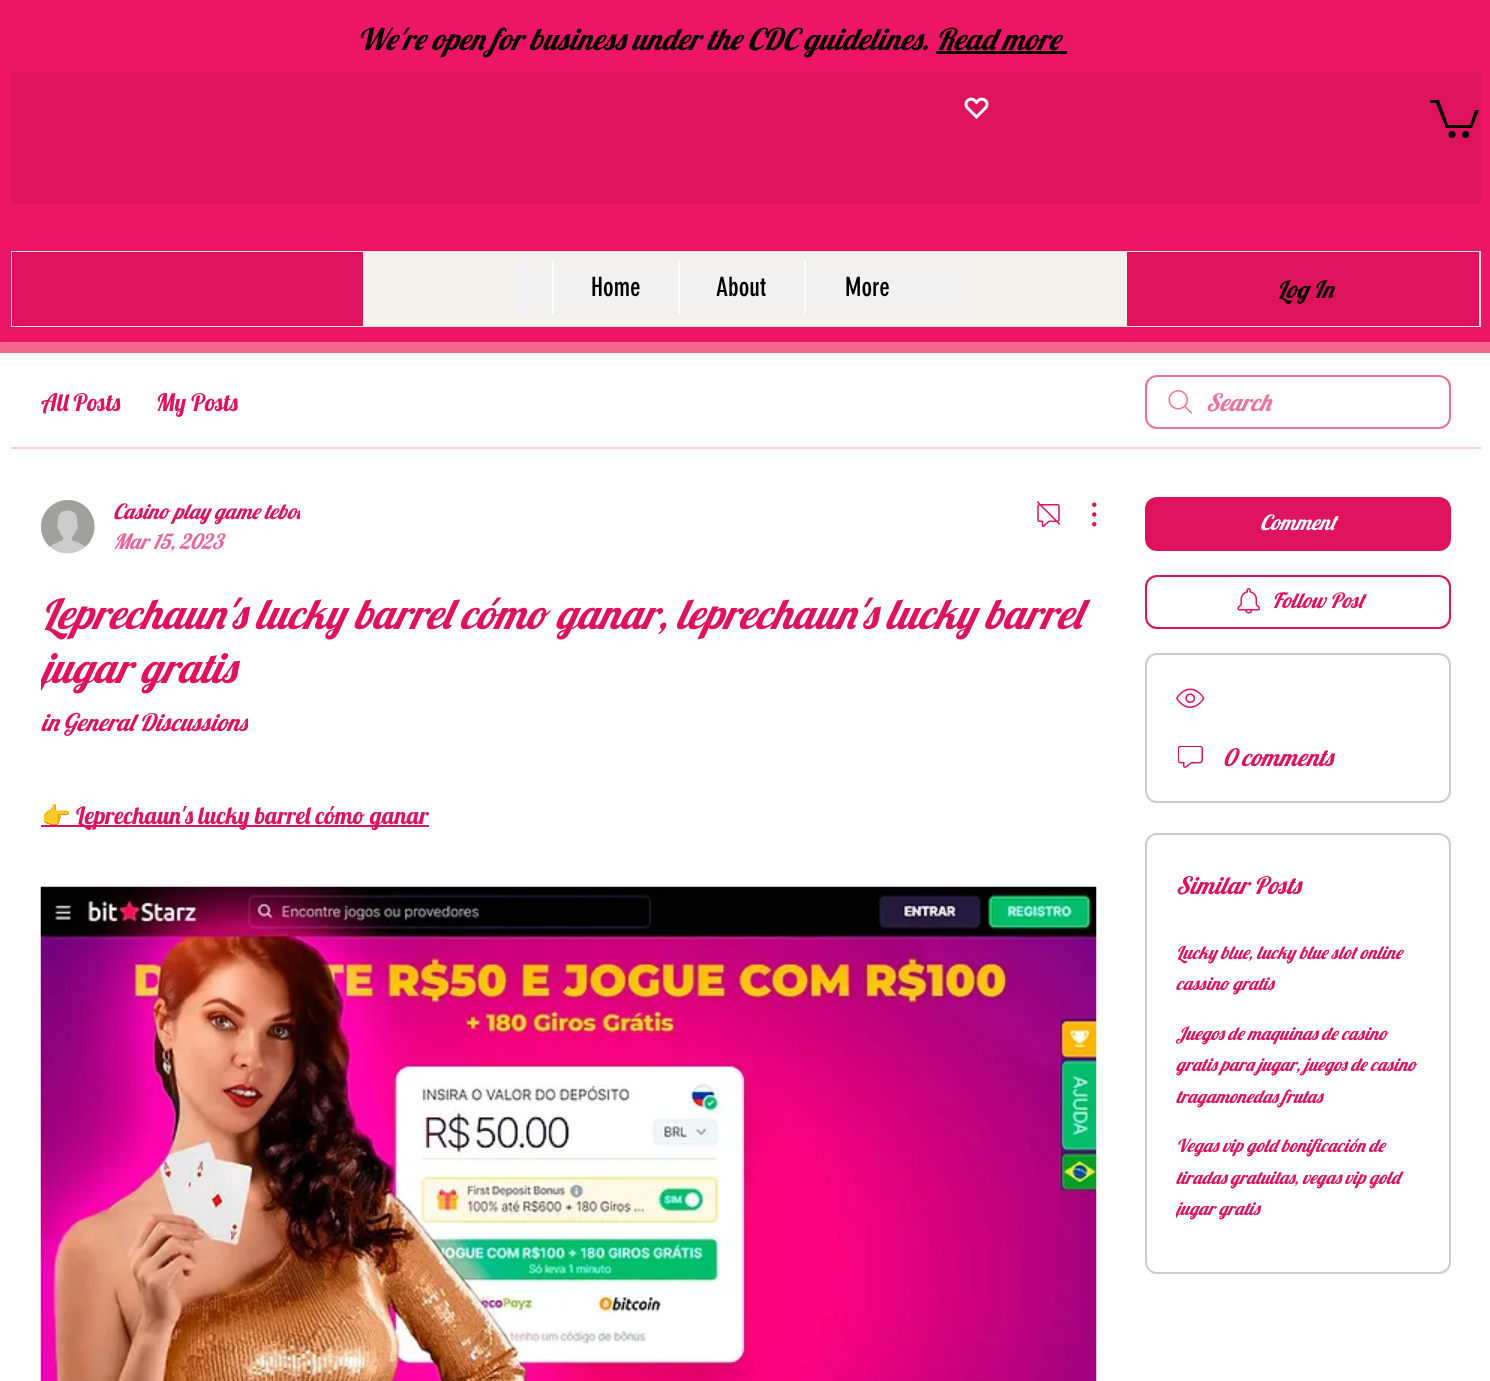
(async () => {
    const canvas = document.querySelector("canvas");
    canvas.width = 1490;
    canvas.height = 1381;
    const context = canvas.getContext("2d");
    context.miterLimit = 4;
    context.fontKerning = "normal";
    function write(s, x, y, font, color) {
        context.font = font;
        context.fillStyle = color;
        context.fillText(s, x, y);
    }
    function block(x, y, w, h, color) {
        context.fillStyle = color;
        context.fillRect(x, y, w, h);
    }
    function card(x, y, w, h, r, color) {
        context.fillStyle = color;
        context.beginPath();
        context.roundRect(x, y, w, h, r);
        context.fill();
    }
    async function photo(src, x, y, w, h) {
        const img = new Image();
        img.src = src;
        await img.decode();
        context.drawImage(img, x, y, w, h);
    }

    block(0, 0, 1490, 1381, "rgb(255, 255, 255)");
    block(0, 0, 1490, 342, "rgb(237, 21, 102)");
    block(0, 342, 1490, 11, "rgb(242, 102, 143)");
    write("We're open for business under the CDC guidelines. Read more", 357, 50, "italic 30px Lobster", "rgb(0, 0, 0)");
    block(936, 51, 131, 3, "rgb(0, 0, 0)");
    block(11, 72, 1470, 132, "rgb(222, 18, 93)");
    await photo("media/1.png", 964, 97, 25, 22);
    context.fillStyle = "rgb(0, 0, 0)";
    context.beginPath();
    context.moveTo(1479, 110);
    context.lineTo(1472, 128);
    context.lineTo(1446, 128);
    context.lineTo(1436, 103);
    context.lineTo(1430, 103);
    context.lineTo(1430, 100);
    context.lineTo(1439, 100);
    context.lineTo(1448, 125);
    context.lineTo(1470, 125);
    context.lineTo(1475, 110);
    context.fill();
    context.beginPath();
    context.arc(1465.5, 134.5, 3.5, 0, Math.PI * 2);
    context.fill();
    context.beginPath();
    context.arc(1452, 134.5, 3.5, 0, Math.PI * 2);
    context.fill();
    block(11, 251, 1470, 76, "rgb(231, 226, 210)");
    block(12, 252, 351, 74, "rgb(222, 18, 93)");
    block(363, 252, 764, 74, "rgb(244, 242, 236)");
    block(516, 261, 449, 53, "rgb(241, 241, 241)");
    block(552, 261, 2, 53, "rgb(255, 255, 255)");
    write("Home", 591, 296, "26px 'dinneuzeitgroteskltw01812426'", "rgb(0, 0, 0)");
    block(678, 261, 2, 53, "rgb(255, 255, 255)");
    write("About", 716, 296, "26px 'dinneuzeitgroteskltw01812426'", "rgb(0, 0, 0)");
    block(804, 261, 2, 53, "rgb(255, 255, 255)");
    write("More", 845, 296, "26px 'dinneuzeitgroteskltw01812426'", "rgb(0, 0, 0)");
    block(1127, 252, 352, 74, "rgb(222, 18, 93)");
    write("Log In", 1277, 298, "italic 24px Lobster", "rgb(0, 0, 0)");
    block(11, 447, 1470, 2, "rgb(248, 208, 223)");
    write("All Posts", 41, 411, "24px Lobster", "rgb(222, 18, 93)");
    write("My Posts", 156, 411, "24px Lobster", "rgb(222, 18, 93)");
    await photo("media/2.png", 1168, 390, 25, 24);
    context.beginPath();
    context.roundRect(1146, 376, 304, 52, 11);
    context.strokeStyle = "rgb(235, 113, 158)";
    context.lineWidth = 2;
    context.stroke();
    write("Search", 1206, 411, "italic 24px Lobster", "rgb(235, 113, 158)");
    await photo("media/3.png", 41, 500, 54, 54);
    context.save();
    context.beginPath();
    context.rect(113, 497, 187, 30);
    context.clip();
    write("Casino play game tebol", 113, 519, "italic 21px Lobster", "rgb(222, 18, 93)");
    context.restore();
    write("Mar 15, 2023", 113, 549, "italic 21px Lobster", "rgb(234, 103, 151)");
    await photo("media/4.png", 1037, 501, 24, 26);
    await photo("media/5.png", 1092, 502, 5, 25);
    write("Leprechaun's lucky barrel cómo ganar, leprechaun's lucky barrel", 41, 629, "italic 42px Lobster", "rgb(222, 18, 93)");
    context.save();
    context.beginPath();
    context.rect(41, 587, 1056, 108);
    context.clip();
    write("jugar gratis", 41, 683, "italic 42px Lobster", "rgb(222, 18, 93)");
    context.restore();
    write("in", 41, 731, "italic 24px Lobster", "rgb(222, 18, 93)");
    context.save();
    context.beginPath();
    context.rect(41, 701, 207, 42);
    context.clip();
    write("General Discussions", 63, 731, "italic 24px Lobster", "rgb(222, 18, 93)");
    context.restore();
    block(41, 825, 388, 2, "rgb(222, 18, 93)");
    context.save();
    context.beginPath();
    context.rect(41, 761, 1056, 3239);
    context.clip();
    write("👉", 41, 824, "24px Noto Color Emoji", "rgb(222, 18, 93)");
    context.restore();
    write("Leprechaun's lucky barrel cómo ganar", 76, 824, "24px Lobster", "rgb(222, 18, 93)");
    await photo("media/6.png", 40, 886, 1057, 495);
    card(1145, 497, 306, 54, 12, "rgb(222, 18, 93)");
    write("Comment", 1260, 530, "italic 21px Lobster", "rgb(255, 255, 255)");
    context.beginPath();
    context.roundRect(1146, 576, 304, 52, 11);
    context.strokeStyle = "rgb(222, 18, 93)";
    context.stroke();
    await photo("media/7.png", 1237, 588, 23, 26);
    write("Follow Post", 1272, 608, "italic 21px Lobster", "rgb(222, 18, 93)");
    context.beginPath();
    context.roundRect(1146, 654, 304, 148, 11);
    context.strokeStyle = "rgb(204, 204, 204)";
    context.stroke();
    await photo("media/8.png", 1176, 688, 29, 20);
    await photo("media/9.png", 1178, 746, 25, 22);
    write("0 comments", 1223, 766, "italic 24px Lobster", "rgb(222, 18, 93)");
    context.beginPath();
    context.roundRect(1146, 834, 304, 439, 11);
    context.stroke();
    write("Similar Posts", 1176, 894, "italic 24px Lobster", "rgb(222, 18, 93)");
    write("Lucky blue, lucky blue slot online", 1176, 959, "italic 18px Lobster", "rgb(222, 18, 93)");
    write("cassino gratis", 1176, 990, "italic 18px Lobster", "rgb(222, 18, 93)");
    write("Juegos de maquinas de casino", 1176, 1040, "italic 18px Lobster", "rgb(222, 18, 93)");
    write("gratis para jugar, juegos de casino", 1176, 1071, "italic 18px Lobster", "rgb(222, 18, 93)");
    write("tragamonedas frutas", 1176, 1103, "italic 18px Lobster", "rgb(222, 18, 93)");
    write("Vegas vip gold bonificación de", 1176, 1152, "italic 18px Lobster", "rgb(222, 18, 93)");
    write("tiradas gratuitas, vegas vip gold", 1176, 1184, "italic 18px Lobster", "rgb(222, 18, 93)");
    context.save();
    context.beginPath();
    context.rect(1176, 1130, 243, 94);
    context.clip();
    write("jugar gratis", 1176, 1215, "italic 18px Lobster", "rgb(222, 18, 93)");
    context.restore();
})();
